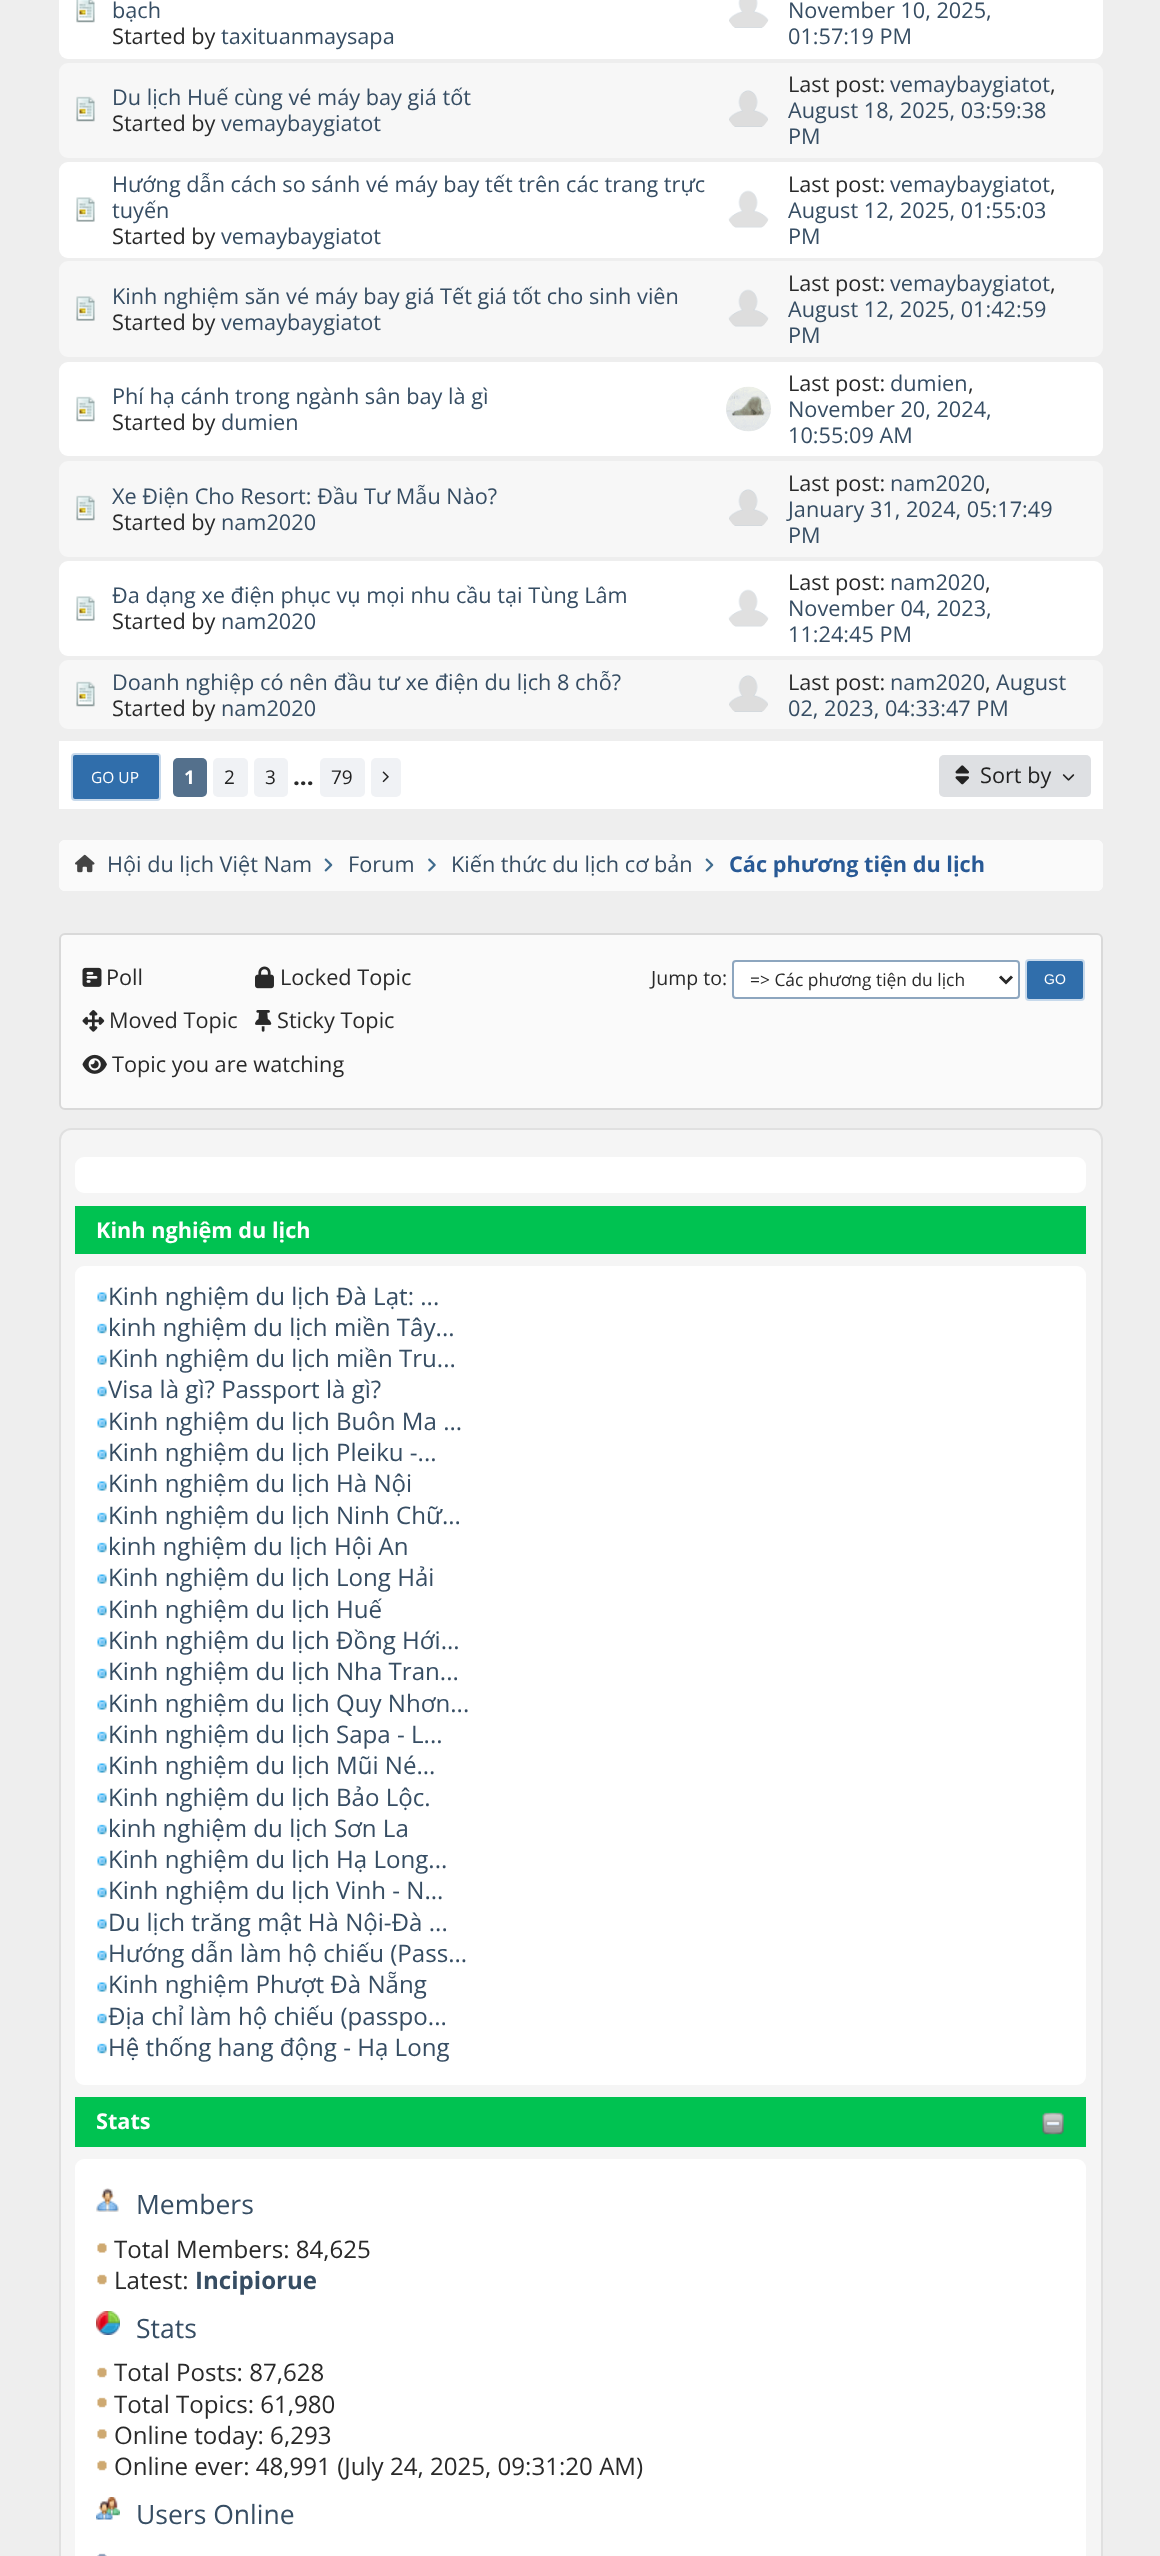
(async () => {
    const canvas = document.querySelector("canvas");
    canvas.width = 1160;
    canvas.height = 2556;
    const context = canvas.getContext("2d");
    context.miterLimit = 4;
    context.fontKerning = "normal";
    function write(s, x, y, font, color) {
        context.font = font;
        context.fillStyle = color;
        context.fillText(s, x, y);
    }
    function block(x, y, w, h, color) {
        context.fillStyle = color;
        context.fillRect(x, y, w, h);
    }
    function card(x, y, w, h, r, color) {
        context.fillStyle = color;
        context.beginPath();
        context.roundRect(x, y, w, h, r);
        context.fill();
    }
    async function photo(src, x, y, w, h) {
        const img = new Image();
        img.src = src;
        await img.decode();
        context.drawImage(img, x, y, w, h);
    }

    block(0, 0, 1160, 2556, "rgb(238, 238, 238)");
    card(59, -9, 1044, 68, 9, "rgb(255, 255, 255)");
    await photo("media/1.png", 76, 0, 19, 23);
    write("bạch", 112, 18, "21.7px Open Sans", "rgb(54, 77, 99)");
    write("Started by", 112, 44, "21.7px Open Sans", "rgb(41, 41, 41)");
    write("taxituanmaysapa", 221, 44, "21.7px Open Sans", "rgb(54, 77, 99)");
    await photo("media/2.png", 729, 0, 40, 28);
    write("November 10, 2025,", 788, 18, "21.7px Open Sans", "rgb(54, 77, 99)");
    write("01:57:19 PM", 788, 44, "21.7px Open Sans", "rgb(54, 77, 99)");
    card(59, 63, 1044, 95, 9, "rgb(247, 247, 247)");
    await photo("media/3.png", 76, 96, 19, 26);
    write("Du lịch Huế cùng vé máy bay giá tốt", 112, 105, "21.7px Open Sans", "rgb(54, 77, 99)");
    write("Started by", 112, 131, "21.7px Open Sans", "rgb(41, 41, 41)");
    write("vemaybaygiatot", 221, 131, "21.7px Open Sans", "rgb(54, 77, 99)");
    await photo("media/4.png", 729, 90, 39, 37);
    write("Last post:", 788, 92, "21.7px Open Sans", "rgb(41, 41, 41)");
    write("vemaybaygiatot", 890, 92, "21.7px Open Sans", "rgb(54, 77, 99)");
    write(",", 1050, 92, "21.7px Open Sans", "rgb(41, 41, 41)");
    write("August 18, 2025, 03:59:38", 788, 118, "21.7px Open Sans", "rgb(54, 77, 99)");
    write("PM", 788, 144, "21.7px Open Sans", "rgb(54, 77, 99)");
    card(59, 162, 1044, 96, 9, "rgb(255, 255, 255)");
    await photo("media/5.png", 76, 197, 19, 25);
    write("Hướng dẫn cách so sánh vé máy bay tết trên các trang trực", 112, 192, "21.7px Open Sans", "rgb(54, 77, 99)");
    write("tuyến", 112, 218, "21.7px Open Sans", "rgb(54, 77, 99)");
    write("Started by", 112, 244, "21.7px Open Sans", "rgb(41, 41, 41)");
    write("vemaybaygiatot", 221, 244, "21.7px Open Sans", "rgb(54, 77, 99)");
    await photo("media/6.png", 728, 190, 41, 38);
    write("Last post:", 788, 192, "21.7px Open Sans", "rgb(41, 41, 41)");
    write("vemaybaygiatot", 890, 192, "21.7px Open Sans", "rgb(54, 77, 99)");
    write(",", 1050, 192, "21.7px Open Sans", "rgb(41, 41, 41)");
    write("August 12, 2025, 01:55:03", 788, 218, "21.7px Open Sans", "rgb(54, 77, 99)");
    write("PM", 788, 244, "21.7px Open Sans", "rgb(54, 77, 99)");
    card(59, 261, 1044, 96, 9, "rgb(247, 247, 247)");
    await photo("media/7.png", 76, 296, 19, 25);
    write("Kinh nghiệm săn vé máy bay giá Tết giá tốt cho sinh viên", 112, 304, "21.7px Open Sans", "rgb(54, 77, 99)");
    write("Started by", 112, 330, "21.7px Open Sans", "rgb(41, 41, 41)");
    write("vemaybaygiatot", 221, 330, "21.7px Open Sans", "rgb(54, 77, 99)");
    await photo("media/8.png", 728, 289, 41, 38);
    write("Last post:", 788, 291, "21.7px Open Sans", "rgb(41, 41, 41)");
    write("vemaybaygiatot", 890, 291, "21.7px Open Sans", "rgb(54, 77, 99)");
    write(",", 1050, 291, "21.7px Open Sans", "rgb(41, 41, 41)");
    write("August 12, 2025, 01:42:59", 788, 317, "21.7px Open Sans", "rgb(54, 77, 99)");
    write("PM", 788, 343, "21.7px Open Sans", "rgb(54, 77, 99)");
    card(59, 362, 1044, 94, 9, "rgb(255, 255, 255)");
    await photo("media/9.png", 76, 396, 19, 26);
    write("Phí hạ cánh trong ngành sân bay là gì", 112, 404, "21.7px Open Sans", "rgb(54, 77, 99)");
    write("Started by", 112, 430, "21.7px Open Sans", "rgb(41, 41, 41)");
    write("dumien", 221, 430, "21.7px Open Sans", "rgb(54, 77, 99)");
    await photo("media/10.png", 726, 386, 45, 46);
    write("Last post:", 788, 391, "21.7px Open Sans", "rgb(41, 41, 41)");
    write("dumien", 890, 391, "21.7px Open Sans", "rgb(54, 77, 99)");
    write(",", 968, 391, "21.7px Open Sans", "rgb(41, 41, 41)");
    write("November 20, 2024,", 788, 417, "21.7px Open Sans", "rgb(54, 77, 99)");
    write("10:55:09 AM", 788, 443, "21.7px Open Sans", "rgb(54, 77, 99)");
    card(59, 461, 1044, 96, 9, "rgb(247, 247, 247)");
    await photo("media/3.png", 76, 495, 19, 26);
    write("Xe Điện Cho Resort: Đầu Tư Mẫu Nào?", 112, 504, "21.7px Open Sans", "rgb(54, 77, 99)");
    write("Started by", 112, 530, "21.7px Open Sans", "rgb(41, 41, 41)");
    write("nam2020", 221, 530, "21.7px Open Sans", "rgb(54, 77, 99)");
    await photo("media/11.png", 729, 489, 39, 37);
    write("Last post:", 788, 491, "21.7px Open Sans", "rgb(41, 41, 41)");
    write("nam2020", 890, 491, "21.7px Open Sans", "rgb(54, 77, 99)");
    write(",", 985, 491, "21.7px Open Sans", "rgb(41, 41, 41)");
    write("January 31, 2024, 05:17:49", 788, 517, "21.7px Open Sans", "rgb(54, 77, 99)");
    write("PM", 788, 543, "21.7px Open Sans", "rgb(54, 77, 99)");
    card(59, 561, 1044, 95, 9, "rgb(255, 255, 255)");
    await photo("media/5.png", 76, 596, 19, 25);
    write("Đa dạng xe điện phục vụ mọi nhu cầu tại Tùng Lâm", 112, 603, "21.7px Open Sans", "rgb(54, 77, 99)");
    write("Started by", 112, 629, "21.7px Open Sans", "rgb(41, 41, 41)");
    write("nam2020", 221, 629, "21.7px Open Sans", "rgb(54, 77, 99)");
    await photo("media/12.png", 728, 589, 41, 38);
    write("Last post:", 788, 590, "21.7px Open Sans", "rgb(41, 41, 41)");
    write("nam2020", 890, 590, "21.7px Open Sans", "rgb(54, 77, 99)");
    write(",", 985, 590, "21.7px Open Sans", "rgb(41, 41, 41)");
    write("November 04, 2023,", 788, 616, "21.7px Open Sans", "rgb(54, 77, 99)");
    write("11:24:45 PM", 788, 642, "21.7px Open Sans", "rgb(54, 77, 99)");
    card(59, 660, 1044, 69, 9, "rgb(247, 247, 247)");
    await photo("media/3.png", 76, 681, 19, 26);
    write("Doanh nghiệp có nên đầu tư xe điện du lịch 8 chỗ?", 112, 690, "21.7px Open Sans", "rgb(54, 77, 99)");
    write("Started by", 112, 716, "21.7px Open Sans", "rgb(41, 41, 41)");
    write("nam2020", 221, 716, "21.7px Open Sans", "rgb(54, 77, 99)");
    await photo("media/4.png", 729, 675, 39, 37);
    write("Last post:", 788, 690, "21.7px Open Sans", "rgb(41, 41, 41)");
    write("nam2020", 890, 690, "21.7px Open Sans", "rgb(54, 77, 99)");
    write(",", 985, 690, "21.7px Open Sans", "rgb(41, 41, 41)");
    write("August", 996, 690, "21.7px Open Sans", "rgb(54, 77, 99)");
    write("02, 2023, 04:33:47 PM", 788, 716, "21.7px Open Sans", "rgb(54, 77, 99)");
    block(59, 741, 1044, 68, "rgb(255, 255, 255)");
    context.fillStyle = "rgb(48, 110, 171)";
    context.beginPath();
    context.roundRect(72, 754, 88, 46, 3);
    context.fill();
    context.strokeStyle = "rgb(199, 217, 235)";
    context.lineWidth = 2;
    context.stroke();
    write("GO UP", 91, 783, "15.5px Open Sans", "rgb(255, 255, 255)");
    card(173, 758, 34, 39, 5, "rgb(84, 112, 140)");
    write("1", 184, 784, "bold 19px Open Sans", "rgb(255, 255, 255)");
    card(213, 758, 35, 39, 5, "rgb(240, 242, 245)");
    write("2", 224, 784, "19px Open Sans", "rgb(34, 34, 34)");
    card(254, 758, 34, 39, 5, "rgb(240, 242, 245)");
    write("3", 265, 784, "19px Open Sans", "rgb(34, 34, 34)");
    write("...", 293, 785, "bold 24.1px Open Sans", "rgb(41, 41, 41)");
    card(320, 758, 45, 39, 5, "rgb(240, 242, 245)");
    write("79", 331, 784, "19px Open Sans", "rgb(34, 34, 34)");
    card(371, 758, 30, 39, 5, "rgb(240, 242, 245)");
    await photo("media/13.png", 382, 771, 7, 12);
    card(939, 755, 152, 42, 5, "rgb(222, 224, 227)");
    await photo("media/14.png", 955, 765, 14, 20);
    write("Sort by", 980, 783, "21.7px Open Sans", "rgb(34, 34, 34)");
    await photo("media/15.png", 1062, 774, 13, 7);
    context.beginPath();
    context.roundRect(60, 841, 1042, 49, 5);
    context.strokeStyle = "rgb(255, 255, 255)";
    context.stroke();
    card(59, 840, 1044, 51, 6, "rgb(250, 250, 250)");
    await photo("media/16.png", 75, 854, 20, 19);
    write("Hội du lịch Việt Nam", 107, 872, "21.7px Open Sans", "rgb(54, 77, 99)");
    await photo("media/17.png", 324, 858, 9, 14);
    write("Forum", 348, 872, "21.7px Open Sans", "rgb(54, 77, 99)");
    await photo("media/18.png", 428, 858, 8, 14);
    write("Kiến thức du lịch cơ bản", 451, 872, "21.7px Open Sans", "rgb(54, 77, 99)");
    await photo("media/17.png", 705, 858, 9, 14);
    write("Các phương tiện du lịch", 729, 872, "bold 21.7px Open Sans", "rgb(40, 89, 149)");
    context.fillStyle = "rgb(250, 250, 250)";
    context.beginPath();
    context.roundRect(60, 934, 1042, 175, 5);
    context.fill();
    context.strokeStyle = "rgb(217, 217, 217)";
    context.stroke();
    await photo("media/19.png", 82, 967, 20, 20);
    write("Poll", 106, 985, "21.7px Open Sans", "rgb(41, 41, 41)");
    await photo("media/20.png", 82, 1010, 23, 22);
    write("Moved Topic", 109, 1028, "21.7px Open Sans", "rgb(41, 41, 41)");
    await photo("media/21.png", 255, 966, 19, 23);
    write("Locked Topic", 280, 985, "21.7px Open Sans", "rgb(41, 41, 41)");
    await photo("media/22.png", 255, 1010, 17, 22);
    write("Sticky Topic", 277, 1028, "21.7px Open Sans", "rgb(41, 41, 41)");
    await photo("media/23.png", 82, 1054, 25, 20);
    write("Topic you are watching", 112, 1072, "21.7px Open Sans", "rgb(41, 41, 41)");
    write("Jump to:", 651, 985, "19.5px Open Sans", "rgb(41, 41, 41)");
    context.fillStyle = "rgb(255, 255, 255)";
    context.beginPath();
    context.roundRect(733, 961, 286, 37, 3);
    context.fill();
    context.strokeStyle = "rgb(141, 166, 191)";
    context.stroke();
    context.beginPath();
    context.moveTo(1000, 976.5);
    context.lineTo(1006, 982.5);
    context.lineTo(1012, 976.5);
    context.strokeStyle = "rgb(41, 41, 41)";
    context.lineWidth = 3;
    context.stroke();
    write("=> Các phương tiện du lịch", 750, 986, "17.4px Open Sans", "rgb(41, 41, 41)");
    context.fillStyle = "rgb(48, 110, 171)";
    context.beginPath();
    context.roundRect(1026, 960, 58, 40, 3);
    context.fill();
    context.strokeStyle = "rgb(199, 217, 235)";
    context.lineWidth = 2;
    context.stroke();
    write("GO", 1044, 984, "14px Liberation Sans", "rgb(255, 255, 255)");
    context.fillStyle = "rgb(245, 245, 245)";
    context.beginPath();
    context.roundRect(60, 1129, 1042, 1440, 11);
    context.fill();
    context.strokeStyle = "rgb(224, 224, 224)";
    context.stroke();
    card(75, 1157, 1011, 36, 9, "rgb(255, 255, 255)");
    block(75, 1206, 1011, 48, "rgb(0, 194, 81)");
    write("Kinh nghiệm du lịch", 96, 1238, "bold 21.7px Open Sans", "rgb(255, 255, 255)");
    card(75, 1266, 1011, 819, 9, "rgb(255, 255, 255)");
    await photo("media/24.png", 97, 1292, 10, 10);
    write("Kinh nghiệm du lịch Đà Lạt: ...", 108, 1305, "24.1px Open Sans", "rgb(54, 77, 99)");
    await photo("media/25.png", 97, 1323, 10, 11);
    write("kinh nghiệm du lịch miền Tây...", 108, 1336, "24.1px Open Sans", "rgb(54, 77, 99)");
    await photo("media/24.png", 97, 1355, 10, 10);
    write("Kinh nghiệm du lịch miền Tru...", 108, 1367, "24.1px Open Sans", "rgb(54, 77, 99)");
    await photo("media/25.png", 97, 1386, 10, 11);
    write("Visa là gì? Passport là gì?", 108, 1398, "24.1px Open Sans", "rgb(54, 77, 99)");
    await photo("media/24.png", 97, 1418, 10, 10);
    write("Kinh nghiệm du lịch Buôn Ma ...", 108, 1430, "24.1px Open Sans", "rgb(54, 77, 99)");
    await photo("media/25.png", 97, 1449, 10, 11);
    write("Kinh nghiệm du lịch Pleiku -...", 108, 1461, "24.1px Open Sans", "rgb(54, 77, 99)");
    await photo("media/24.png", 97, 1481, 10, 10);
    write("Kinh nghiệm du lịch Hà Nội", 108, 1492, "24.1px Open Sans", "rgb(54, 77, 99)");
    await photo("media/25.png", 97, 1512, 10, 11);
    write("Kinh nghiệm du lịch Ninh Chữ...", 108, 1524, "24.1px Open Sans", "rgb(54, 77, 99)");
    await photo("media/25.png", 97, 1542, 10, 11);
    write("kinh nghiệm du lịch Hội An", 108, 1555, "24.1px Open Sans", "rgb(54, 77, 99)");
    await photo("media/24.png", 97, 1574, 10, 10);
    write("Kinh nghiệm du lịch Long Hải", 108, 1586, "24.1px Open Sans", "rgb(54, 77, 99)");
    await photo("media/25.png", 97, 1605, 10, 11);
    write("Kinh nghiệm du lịch Huế", 108, 1618, "24.1px Open Sans", "rgb(54, 77, 99)");
    await photo("media/24.png", 97, 1637, 10, 10);
    write("Kinh nghiệm du lịch Đồng Hới...", 108, 1649, "24.1px Open Sans", "rgb(54, 77, 99)");
    await photo("media/25.png", 97, 1668, 10, 11);
    write("Kinh nghiệm du lịch Nha Tran...", 108, 1680, "24.1px Open Sans", "rgb(54, 77, 99)");
    await photo("media/24.png", 97, 1700, 10, 10);
    write("Kinh nghiệm du lịch Quy Nhơn...", 108, 1712, "24.1px Open Sans", "rgb(54, 77, 99)");
    await photo("media/25.png", 97, 1731, 10, 11);
    write("Kinh nghiệm du lịch Sapa - L...", 108, 1743, "24.1px Open Sans", "rgb(54, 77, 99)");
    await photo("media/24.png", 97, 1763, 10, 10);
    write("Kinh nghiệm du lịch Mũi Né...", 108, 1774, "24.1px Open Sans", "rgb(54, 77, 99)");
    await photo("media/24.png", 97, 1793, 10, 10);
    write("Kinh nghiệm du lịch Bảo Lộc.", 108, 1806, "24.1px Open Sans", "rgb(54, 77, 99)");
    await photo("media/25.png", 97, 1824, 10, 11);
    write("kinh nghiệm du lịch Sơn La", 108, 1837, "24.1px Open Sans", "rgb(54, 77, 99)");
    await photo("media/24.png", 97, 1856, 10, 10);
    write("Kinh nghiệm du lịch Hạ Long...", 108, 1868, "24.1px Open Sans", "rgb(54, 77, 99)");
    await photo("media/25.png", 97, 1887, 10, 11);
    write("Kinh nghiệm du lịch Vinh - N...", 108, 1899, "24.1px Open Sans", "rgb(54, 77, 99)");
    await photo("media/24.png", 97, 1919, 10, 10);
    write("Du lịch trăng mật Hà Nội-Đà ...", 108, 1931, "24.1px Open Sans", "rgb(54, 77, 99)");
    await photo("media/25.png", 97, 1950, 10, 11);
    write("Hướng dẫn làm hộ chiếu (Pass...", 108, 1962, "24.1px Open Sans", "rgb(54, 77, 99)");
    await photo("media/24.png", 97, 1982, 10, 10);
    write("Kinh nghiệm Phượt Đà Nẵng", 108, 1993, "24.1px Open Sans", "rgb(54, 77, 99)");
    await photo("media/25.png", 97, 2013, 10, 11);
    write("Địa chỉ làm hộ chiếu (passpo...", 108, 2025, "24.1px Open Sans", "rgb(54, 77, 99)");
    await photo("media/25.png", 97, 2043, 10, 11);
    write("Hệ thống hang động - Hạ Long", 108, 2056, "24.1px Open Sans", "rgb(54, 77, 99)");
    block(75, 2097, 1011, 50, "rgb(0, 194, 81)");
    write("Stats", 96, 2129, "bold 21.7px Open Sans", "rgb(255, 255, 255)");
    await photo("media/26.png", 1042, 2112, 22, 23);
    card(75, 2159, 1011, 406, 9, "rgb(255, 255, 255)");
    await photo("media/27.png", 96, 2188, 23, 24);
    write("Members", 136, 2214, "26.5px Open Sans", "rgb(54, 77, 99)");
    await photo("media/28.png", 97, 2243, 10, 10);
    write("Total Members: 84,625", 114, 2258, "24.1px Open Sans", "rgb(41, 41, 41)");
    await photo("media/29.png", 97, 2274, 10, 11);
    write("Latest:", 114, 2289, "24.1px Open Sans", "rgb(41, 41, 41)");
    write("Incipiorue", 195, 2289, "bold 24.1px Open Sans", "rgb(54, 77, 99)");
    await photo("media/30.png", 96, 2311, 24, 24);
    write("Stats", 136, 2338, "26.5px Open Sans", "rgb(54, 77, 99)");
    await photo("media/29.png", 97, 2367, 10, 11);
    write("Total Posts: 87,628", 114, 2381, "24.1px Open Sans", "rgb(41, 41, 41)");
    await photo("media/29.png", 97, 2397, 10, 11);
    write("Total Topics: 61,980", 114, 2413, "24.1px Open Sans", "rgb(41, 41, 41)");
    await photo("media/28.png", 97, 2429, 10, 10);
    write("Online today: 6,293", 114, 2444, "24.1px Open Sans", "rgb(41, 41, 41)");
    await photo("media/29.png", 97, 2460, 10, 11);
    write("Online ever: 48,991 (July 24, 2025, 09:31:20 AM)", 114, 2475, "24.1px Open Sans", "rgb(41, 41, 41)");
    await photo("media/31.png", 96, 2497, 24, 23);
    write("Users Online", 136, 2524, "26.5px Open Sans", "rgb(54, 77, 99)");
    await photo("media/32.png", 97, 2553, 10, 3);
})();
